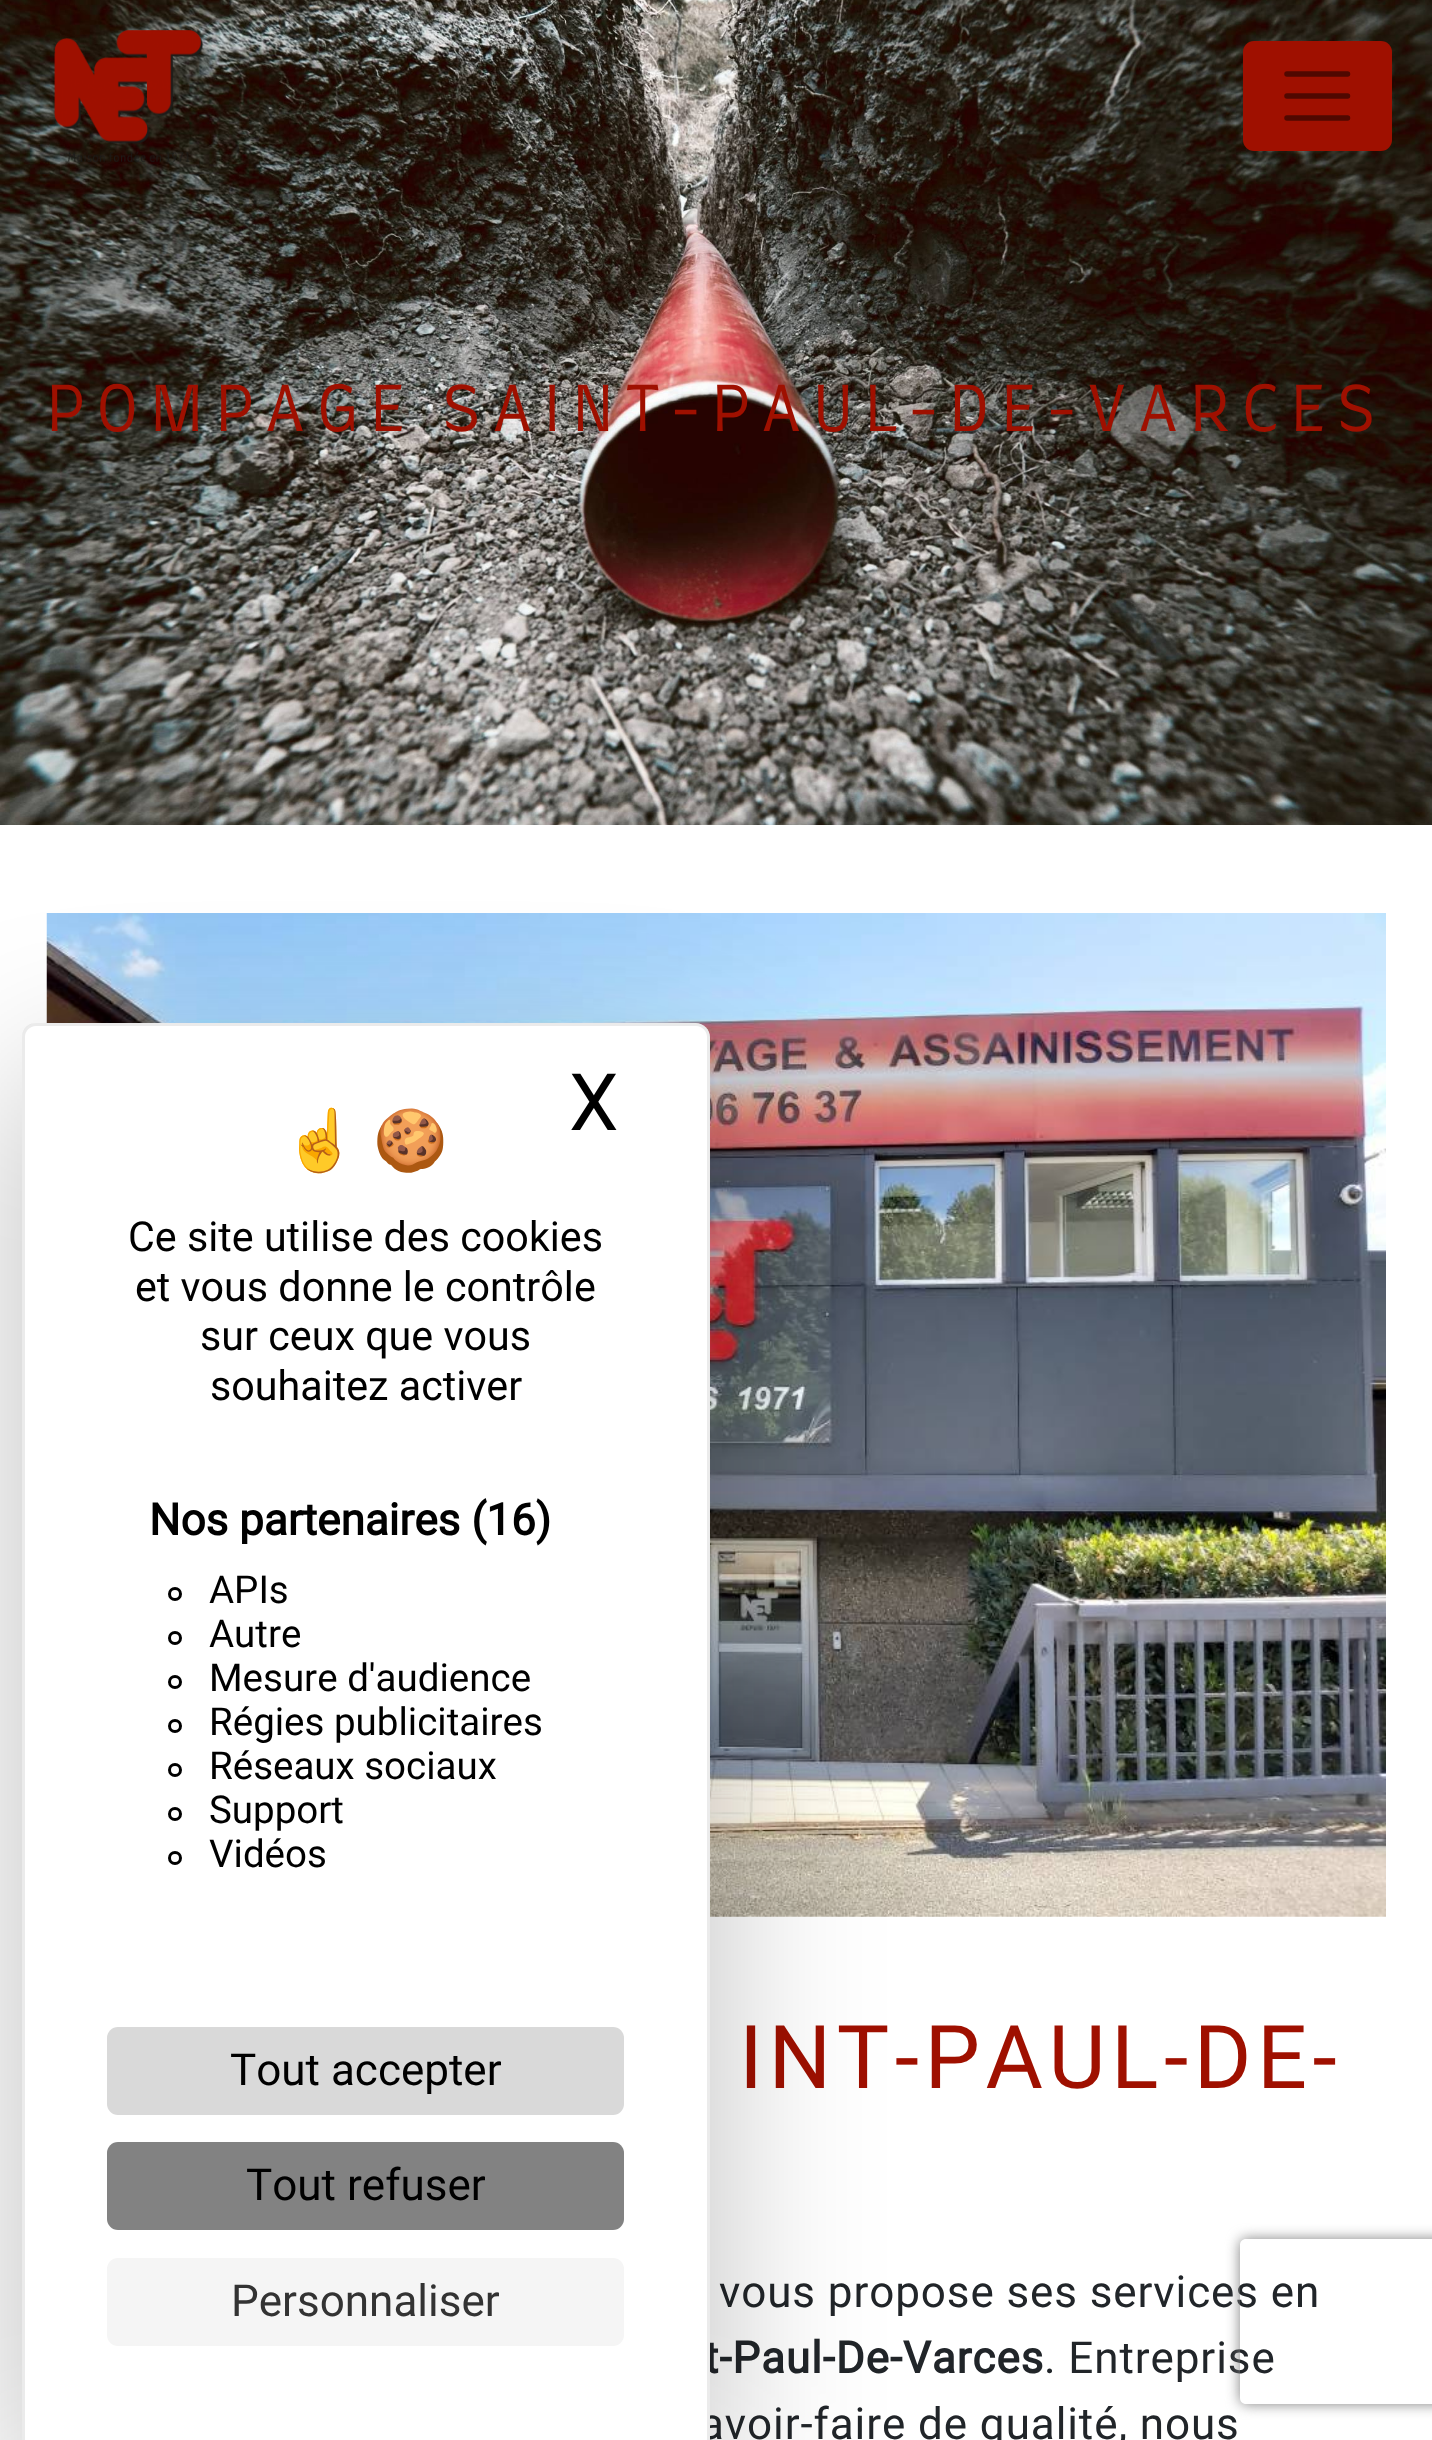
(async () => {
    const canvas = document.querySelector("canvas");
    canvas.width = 1432;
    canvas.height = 2440;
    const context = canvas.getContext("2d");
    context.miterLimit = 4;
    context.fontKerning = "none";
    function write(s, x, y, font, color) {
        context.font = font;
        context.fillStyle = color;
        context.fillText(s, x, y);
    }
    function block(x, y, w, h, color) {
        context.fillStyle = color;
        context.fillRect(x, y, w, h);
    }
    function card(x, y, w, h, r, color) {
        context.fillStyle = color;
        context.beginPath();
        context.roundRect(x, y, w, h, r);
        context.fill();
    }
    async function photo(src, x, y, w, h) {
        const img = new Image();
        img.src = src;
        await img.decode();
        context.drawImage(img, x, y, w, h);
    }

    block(0, 0, 1432, 2440, "rgb(255, 255, 255)");
    await photo("media/2.png", 0, 0, 1432, 825);
    await photo("media/1.png", 54, 30, 150, 132);
    card(1243, 41, 149, 110, 11, "rgb(159, 16, 0)");
    context.beginPath();
    context.moveTo(1287, 74);
    context.lineTo(1347.5, 74);
    context.moveTo(1287, 96);
    context.lineTo(1347.5, 96);
    context.moveTo(1287, 118);
    context.lineTo(1347.5, 118);
    context.strokeStyle = "rgb(80, 8, 0)";
    context.lineWidth = 5.5;
    context.lineCap = "round";
    context.stroke();
    context.letterSpacing = "11px";
    write("POMPAGE SAINT-PAUL-DE-VARCES", 46, 431, "300 61.6px Farro", "rgb(159, 16, 0)");
    await photo("media/3.png", 46, 913, 1340, 1004);
    context.letterSpacing = "5.5px";
    write("INT-PAUL-DE-", 739, 2088, "88px Roboto", "rgb(159, 16, 0)");
    context.letterSpacing = "0.9px";
    write("vous propose ses services en", 719, 2307, "44px Roboto", "rgb(33, 37, 41)");
    write("t-Paul-De-Varces", 704, 2373, "bold 44px Roboto", "rgb(33, 37, 41)");
    write(". Entreprise", 1044, 2373, "44px Roboto", "rgb(33, 37, 41)");
    write("avoir-faire de qualité, nous", 700, 2439, "44px Roboto", "rgb(33, 37, 41)");
    context.fillStyle = "rgba(0, 0, 0, 0.25)";
    context.filter = "blur(82.5px)";
    context.beginPath();
    context.roundRect(22, 1078, 688, 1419, 14);
    context.fill();
    context.filter = "none";
    context.fillStyle = "rgb(255, 255, 255)";
    context.beginPath();
    context.moveTo(36, 1023);
    context.lineTo(696, 1023);
    context.bezierCurveTo(703.5, 1023, 710, 1029.5, 710, 1037);
    context.lineTo(710, 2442);
    context.lineTo(22, 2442);
    context.lineTo(22, 1037);
    context.bezierCurveTo(22, 1029.5, 28.5, 1023, 36, 1023);
    context.closePath();
    context.fill();
    context.fillStyle = "rgba(0, 0, 0, 0.08)";
    context.beginPath();
    context.moveTo(36, 1023);
    context.lineTo(696, 1023);
    context.bezierCurveTo(703, 1023, 710, 1029, 710, 1037);
    context.lineTo(710, 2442);
    context.lineTo(22, 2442);
    context.lineTo(22, 1037);
    context.bezierCurveTo(22, 1029, 28, 1023, 36, 1023);
    context.closePath();
    context.moveTo(36, 1026);
    context.lineTo(696, 1026);
    context.bezierCurveTo(702, 1026, 707, 1031, 707, 1037);
    context.lineTo(707, 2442);
    context.lineTo(25, 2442);
    context.lineTo(25, 1037);
    context.bezierCurveTo(25, 1031, 30, 1026, 36, 1026);
    context.closePath();
    context.fill("evenodd");
    context.letterSpacing = "0px";
    write("☝️", 283, 1161, "60px Noto Color Emoji", "rgb(0, 0, 0)");
    write("🍪", 373, 1161, "60px Noto Color Emoji", "rgb(0, 0, 0)");
    write("X", 569, 1130, "79px Roboto", "rgb(0, 0, 0)");
    write("Ce site utilise des cookies", 128, 1251, "41.25px Roboto", "rgb(0, 0, 0)");
    write("et vous donne le contrôle", 135, 1301, "41.25px Roboto", "rgb(0, 0, 0)");
    write("sur ceux que vous", 200, 1350, "41.25px Roboto", "rgb(0, 0, 0)");
    write("souhaitez activer", 210, 1400, "41.25px Roboto", "rgb(0, 0, 0)");
    write("Nos partenaires (16)", 149, 1535, "bold 44px Roboto", "rgb(0, 0, 0)");
    context.beginPath();
    context.arc(175, 1594, 5.5, 0, Math.PI * 2);
    context.strokeStyle = "rgb(0, 0, 0)";
    context.lineWidth = 3;
    context.stroke();
    write("APIs", 209, 1603, "38.5px Roboto", "rgb(0, 0, 0)");
    context.beginPath();
    context.arc(175, 1638, 5.5, 0, Math.PI * 2);
    context.stroke();
    write("Autre", 209, 1647, "38.5px Roboto", "rgb(0, 0, 0)");
    context.beginPath();
    context.arc(175, 1682, 5.5, 0, Math.PI * 2);
    context.stroke();
    write("Mesure d'audience", 209, 1691, "38.5px Roboto", "rgb(0, 0, 0)");
    context.beginPath();
    context.arc(175, 1726, 5.5, 0, Math.PI * 2);
    context.stroke();
    write("Régies publicitaires", 209, 1735, "38.5px Roboto", "rgb(0, 0, 0)");
    context.beginPath();
    context.arc(175, 1770, 5.5, 0, Math.PI * 2);
    context.stroke();
    write("Réseaux sociaux", 209, 1779, "38.5px Roboto", "rgb(0, 0, 0)");
    context.beginPath();
    context.arc(175, 1814, 5.5, 0, Math.PI * 2);
    context.stroke();
    write("Support", 209, 1823, "38.5px Roboto", "rgb(0, 0, 0)");
    context.beginPath();
    context.arc(175, 1858, 5.5, 0, Math.PI * 2);
    context.stroke();
    write("Vidéos", 209, 1867, "38.5px Roboto", "rgb(0, 0, 0)");
    card(107, 2027, 517, 88, 11, "rgb(217, 217, 217)");
    write("Tout accepter", 230, 2085, "44px Roboto", "rgb(0, 0, 0)");
    card(107, 2142, 517, 88, 11, "rgb(130, 130, 130)");
    write("Tout refuser", 246, 2200, "44px Roboto", "rgb(0, 0, 0)");
    card(107, 2258, 517, 88, 11, "rgb(245, 245, 245)");
    write("Personnaliser", 231, 2316, "44px Roboto", "rgb(51, 51, 51)");
    context.save();
    context.beginPath();
    context.moveTo(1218, 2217);
    context.lineTo(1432, 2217);
    context.lineTo(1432, 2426);
    context.lineTo(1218, 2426);
    context.closePath();
    context.moveTo(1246, 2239);
    context.lineTo(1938, 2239);
    context.bezierCurveTo(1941.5, 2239, 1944, 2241.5, 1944, 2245);
    context.lineTo(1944, 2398);
    context.bezierCurveTo(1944, 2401.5, 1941.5, 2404, 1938, 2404);
    context.lineTo(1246, 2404);
    context.bezierCurveTo(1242.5, 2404, 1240, 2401.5, 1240, 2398);
    context.lineTo(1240, 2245);
    context.bezierCurveTo(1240, 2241.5, 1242.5, 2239, 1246, 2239);
    context.closePath();
    context.clip("evenodd");
    context.fillStyle = "rgb(128, 128, 128)";
    context.filter = "blur(7px)";
    context.beginPath();
    context.roundRect(1240, 2239, 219, 165, 6);
    context.fill();
    context.filter = "none";
    context.restore();
})();
